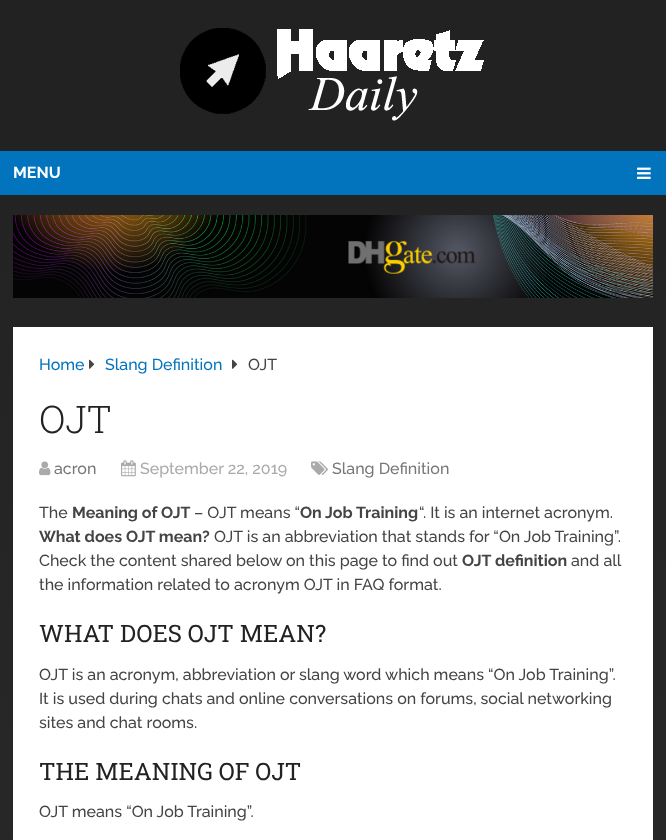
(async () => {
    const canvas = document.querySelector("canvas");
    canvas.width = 666;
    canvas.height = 840;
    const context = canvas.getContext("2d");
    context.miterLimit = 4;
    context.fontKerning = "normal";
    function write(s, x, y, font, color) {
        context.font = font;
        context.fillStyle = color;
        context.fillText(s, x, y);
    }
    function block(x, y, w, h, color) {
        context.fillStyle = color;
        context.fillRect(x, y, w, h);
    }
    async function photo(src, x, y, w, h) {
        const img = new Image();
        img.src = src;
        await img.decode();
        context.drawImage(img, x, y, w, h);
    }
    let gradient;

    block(0, 0, 666, 840, "rgb(255, 255, 255)");
    gradient = context.createLinearGradient(333, 0, 333, 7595);
    gradient.addColorStop(0, "rgb(34, 34, 34)");
    gradient.addColorStop(1, "rgb(81, 81, 81)");
    context.fillStyle = gradient;
    context.fillRect(0, 195, 666, 645);
    block(0, 0, 666, 151, "rgb(34, 34, 34)");
    await photo("media/1.png", 180, 28, 304, 93);
    block(0, 151, 666, 44, "rgb(2, 116, 190)");
    write("MENU", 13, 178, "bold 16px Raleway", "rgb(255, 255, 255)");
    await photo("media/2.png", 637, 167, 14, 12);
    await photo("media/3.png", 13, 215, 640, 83);
    block(13, 327, 640, 513, "rgb(255, 255, 255)");
    write("Home", 39, 370, "500 16px Raleway", "rgb(2, 116, 190)");
    await photo("media/4.png", 89, 359, 6, 10);
    write("Slang Definition", 105, 370, "500 16px Raleway", "rgb(2, 116, 190)");
    await photo("media/4.png", 232, 359, 6, 10);
    write("OJT", 248, 370, "500 16px Raleway", "rgb(68, 68, 68)");
    write("OJT", 39, 433, "300 38px Roboto Slab", "rgb(34, 34, 34)");
    await photo("media/5.png", 39, 461, 12, 15);
    write("acron", 54, 474, "500 16px Raleway", "rgb(119, 119, 119)");
    await photo("media/6.png", 121, 460, 15, 17);
    write("September 22, 2019", 140, 474, "500 16px Raleway", "rgb(170, 170, 170)");
    await photo("media/7.png", 311, 461, 17, 14);
    write("Slang Definition", 332, 474, "500 16px Raleway", "rgb(119, 119, 119)");
    write("The", 39, 518, "500 16px Raleway", "rgb(68, 68, 68)");
    write("Meaning of OJT", 72, 518, "bold 16px Raleway", "rgb(68, 68, 68)");
    write("– OJT means “", 194, 518, "500 16px Raleway", "rgb(68, 68, 68)");
    write("On Job Training", 300, 518, "bold 16px Raleway", "rgb(68, 68, 68)");
    write("“. It is an internet acronym.", 419, 518, "500 16px Raleway", "rgb(68, 68, 68)");
    write("What does OJT mean?", 39, 542, "bold 16px Raleway", "rgb(68, 68, 68)");
    write("OJT is an abbreviation that stands for “On Job Training”.", 214, 542, "500 16px Raleway", "rgb(68, 68, 68)");
    write("Check the content shared below on this page to find out", 39, 566, "500 16px Raleway", "rgb(68, 68, 68)");
    write("OJT definition", 462, 566, "bold 16px Raleway", "rgb(68, 68, 68)");
    write("and all", 571, 566, "500 16px Raleway", "rgb(68, 68, 68)");
    write("the information related to acronym OJT in FAQ format.", 39, 590, "500 16px Raleway", "rgb(68, 68, 68)");
    write("WHAT DOES OJT MEAN?", 39, 642, "24px Roboto Slab", "rgb(34, 34, 34)");
    write("OJT is an acronym, abbreviation or slang word which means “On Job Training”.", 39, 680, "500 16px Raleway", "rgb(68, 68, 68)");
    write("It is used during chats and online conversations on forums, social networking", 39, 704, "500 16px Raleway", "rgb(68, 68, 68)");
    write("sites and chat rooms.", 39, 728, "500 16px Raleway", "rgb(68, 68, 68)");
    write("THE MEANING OF OJT", 39, 780, "24px Roboto Slab", "rgb(34, 34, 34)");
    write("OJT means “On Job Training”.", 39, 817, "500 16px Raleway", "rgb(68, 68, 68)");
})();
